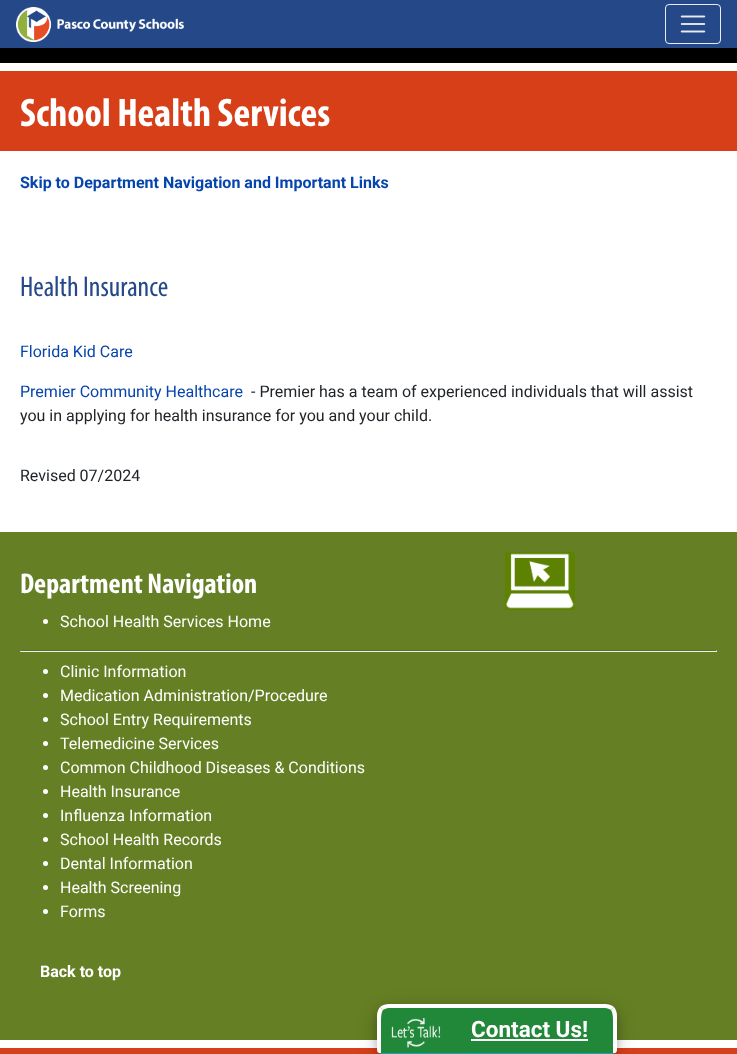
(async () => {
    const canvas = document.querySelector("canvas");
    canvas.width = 737;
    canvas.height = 1054;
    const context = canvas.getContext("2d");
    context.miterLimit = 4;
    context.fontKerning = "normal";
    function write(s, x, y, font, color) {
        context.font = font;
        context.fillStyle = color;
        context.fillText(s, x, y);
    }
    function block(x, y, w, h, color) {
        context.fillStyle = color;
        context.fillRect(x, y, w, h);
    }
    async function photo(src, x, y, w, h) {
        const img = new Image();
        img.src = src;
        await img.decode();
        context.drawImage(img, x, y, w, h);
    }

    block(0, 0, 737, 1054, "rgb(0, 0, 0)");
    block(0, 0, 737, 48, "rgb(37, 72, 137)");
    await photo("media/1.png", 16, 7, 168, 35);
    context.beginPath();
    context.roundRect(665.5, 4.5, 55, 39, 3.5);
    context.strokeStyle = "rgb(233, 237, 243)";
    context.stroke();
    await photo("media/2.png", 680, 15, 26, 18);
    block(0, 151, 737, 381, "rgb(255, 255, 255)");
    block(0, 71, 737, 80, "rgb(215, 63, 25)");
    block(0, 63, 737, 8, "rgb(255, 255, 255)");
    write("School Health Services", 20, 126, "bold 40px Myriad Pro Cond", "rgb(255, 255, 255)");
    write("Skip to Department Navigation and Important Links", 20, 188, "bold 16px Roboto", "rgb(6, 69, 173)");
    write("Health Insurance", 20, 296, "28.75px Myriad Pro Cond", "rgb(37, 72, 137)");
    write("Florida Kid Care", 20, 357, "16px Roboto", "rgb(6, 69, 173)");
    write("Premier Community Healthcare", 20, 397, "16px Roboto", "rgb(6, 69, 173)");
    write("- Premier has a team of experienced individuals that will assist", 251, 397, "16px Roboto", "rgb(33, 37, 41)");
    write("you in applying for health insurance for you and your child.", 20, 421, "16px Roboto", "rgb(33, 37, 41)");
    write("Revised 07/2024", 20, 481, "16px Roboto", "rgb(33, 37, 41)");
    block(0, 1048, 737, 6, "rgb(215, 63, 25)");
    block(0, 532, 737, 508, "rgb(101, 127, 36)");
    write("Department Navigation", 20, 593, "bold 28.75px Myriad Pro Cond", "rgb(255, 255, 255)");
    await photo("media/3.png", 505, 552, 70, 58);
    context.beginPath();
    context.arc(45.5, 621.5, 2.5, 0, Math.PI * 2);
    context.fill();
    write("School Health Services Home", 60, 627, "16px Roboto", "rgb(255, 255, 255)");
    context.fillStyle = "rgb(91, 114, 32)";
    context.beginPath();
    context.moveTo(20, 650);
    context.lineTo(717, 650);
    context.lineTo(716, 651);
    context.lineTo(21, 651);
    context.closePath();
    context.fill();
    context.fillStyle = "rgb(238, 238, 238)";
    context.beginPath();
    context.moveTo(717, 650);
    context.lineTo(717, 652);
    context.lineTo(716, 651);
    context.closePath();
    context.fill();
    block(20, 651, 697, 1, "rgb(238, 238, 238)");
    context.fillStyle = "rgb(159, 159, 159)";
    context.beginPath();
    context.moveTo(20, 652);
    context.lineTo(20, 650);
    context.lineTo(21, 651);
    context.closePath();
    context.fill();
    context.fillStyle = "rgb(255, 255, 255)";
    context.beginPath();
    context.arc(45.5, 671.5, 2.5, 0, Math.PI * 2);
    context.fill();
    write("Clinic Information", 60, 677, "16px Roboto", "rgb(255, 255, 255)");
    context.beginPath();
    context.arc(45.5, 695.5, 2.5, 0, Math.PI * 2);
    context.fill();
    write("Medication Administration/Procedure", 60, 701, "16px Roboto", "rgb(255, 255, 255)");
    context.beginPath();
    context.arc(45.5, 719.5, 2.5, 0, Math.PI * 2);
    context.fill();
    write("School Entry Requirements", 60, 725, "16px Roboto", "rgb(255, 255, 255)");
    context.beginPath();
    context.arc(45.5, 743.5, 2.5, 0, Math.PI * 2);
    context.fill();
    write("Telemedicine Services", 60, 749, "16px Roboto", "rgb(255, 255, 255)");
    context.beginPath();
    context.arc(45.5, 767.5, 2.5, 0, Math.PI * 2);
    context.fill();
    write("Common Childhood Diseases & Conditions", 60, 773, "16px Roboto", "rgb(255, 255, 255)");
    context.beginPath();
    context.arc(45.5, 791.5, 2.5, 0, Math.PI * 2);
    context.fill();
    write("Health Insurance", 60, 797, "16px Roboto", "rgb(255, 255, 255)");
    context.beginPath();
    context.arc(45.5, 815.5, 2.5, 0, Math.PI * 2);
    context.fill();
    write("Influenza Information", 60, 821, "16px Roboto", "rgb(255, 255, 255)");
    context.beginPath();
    context.arc(45.5, 839.5, 2.5, 0, Math.PI * 2);
    context.fill();
    write("School Health Records", 60, 845, "16px Roboto", "rgb(255, 255, 255)");
    context.beginPath();
    context.arc(45.5, 863.5, 2.5, 0, Math.PI * 2);
    context.fill();
    write("Dental Information", 60, 869, "16px Roboto", "rgb(255, 255, 255)");
    context.beginPath();
    context.arc(45.5, 887.5, 2.5, 0, Math.PI * 2);
    context.fill();
    write("Health Screening", 60, 893, "16px Roboto", "rgb(255, 255, 255)");
    context.beginPath();
    context.arc(45.5, 911.5, 2.5, 0, Math.PI * 2);
    context.fill();
    write("Forms", 60, 917, "16px Roboto", "rgb(255, 255, 255)");
    write("Back to top", 40, 977, "bold 16px Roboto", "rgb(255, 255, 255)");
    block(0, 1040, 737, 8, "rgb(255, 255, 255)");
    context.fillStyle = "rgba(0, 0, 0, 0.19)";
    context.filter = "blur(10px)";
    context.beginPath();
    context.roundRect(377, 1010, 240, 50, 12);
    context.fill();
    context.filter = "none";
    context.fillStyle = "rgba(0, 0, 0, 0.2)";
    context.filter = "blur(4px)";
    context.beginPath();
    context.roundRect(377, 1008, 240, 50, 12);
    context.fill();
    context.filter = "none";
    context.fillStyle = "rgb(33, 135, 57)";
    context.beginPath();
    context.moveTo(389, 1008);
    context.lineTo(605, 1008);
    context.bezierCurveTo(613, 1008, 613, 1016, 613, 1022);
    context.lineTo(613, 1053);
    context.lineTo(381, 1053);
    context.lineTo(381, 1022);
    context.bezierCurveTo(381, 1016, 381, 1008, 389, 1008);
    context.closePath();
    context.fill();
    await photo("media/4.png", 391, 1018, 50, 30);
    context.fillStyle = "rgb(255, 255, 255)";
    context.beginPath();
    context.moveTo(389, 1004);
    context.bezierCurveTo(386, 1004, 382, 1005, 380, 1007);
    context.lineTo(383, 1010);
    context.bezierCurveTo(385, 1009, 386, 1008, 389, 1008);
    context.lineTo(605, 1008);
    context.bezierCurveTo(608, 1008, 609, 1009, 611, 1010);
    context.lineTo(614, 1007);
    context.bezierCurveTo(612, 1005, 608, 1004, 605, 1004);
    context.closePath();
    context.fill();
    context.beginPath();
    context.moveTo(617, 1050);
    context.lineTo(617, 1016);
    context.bezierCurveTo(617, 1012, 616, 1010, 614, 1007);
    context.lineTo(611, 1010);
    context.bezierCurveTo(613, 1013, 613, 1018, 613, 1022);
    context.lineTo(613, 1053);
    context.lineTo(615, 1053);
    context.bezierCurveTo(616, 1053, 617, 1051, 617, 1050);
    context.closePath();
    context.fill();
    context.fillStyle = "rgb(23, 162, 184)";
    context.beginPath();
    context.moveTo(381, 1054);
    context.lineTo(613, 1054);
    context.lineTo(615, 1053);
    context.lineTo(613, 1053);
    context.lineTo(381, 1053);
    context.lineTo(379, 1053);
    context.closePath();
    context.fill();
    context.fillStyle = "rgb(255, 255, 255)";
    context.beginPath();
    context.moveTo(377, 1016);
    context.lineTo(377, 1050);
    context.bezierCurveTo(377, 1051, 378, 1053, 379, 1053);
    context.lineTo(381, 1053);
    context.lineTo(381, 1022);
    context.bezierCurveTo(381, 1018, 381, 1013, 383, 1010);
    context.lineTo(380, 1007);
    context.bezierCurveTo(378, 1010, 377, 1012, 377, 1016);
    context.closePath();
    context.fill();
    write("Contact Us!", 471, 1037, "bold 22.5px Roboto", "rgb(255, 255, 255)");
    block(471, 1039, 117, 2, "rgb(255, 255, 255)");
})();
